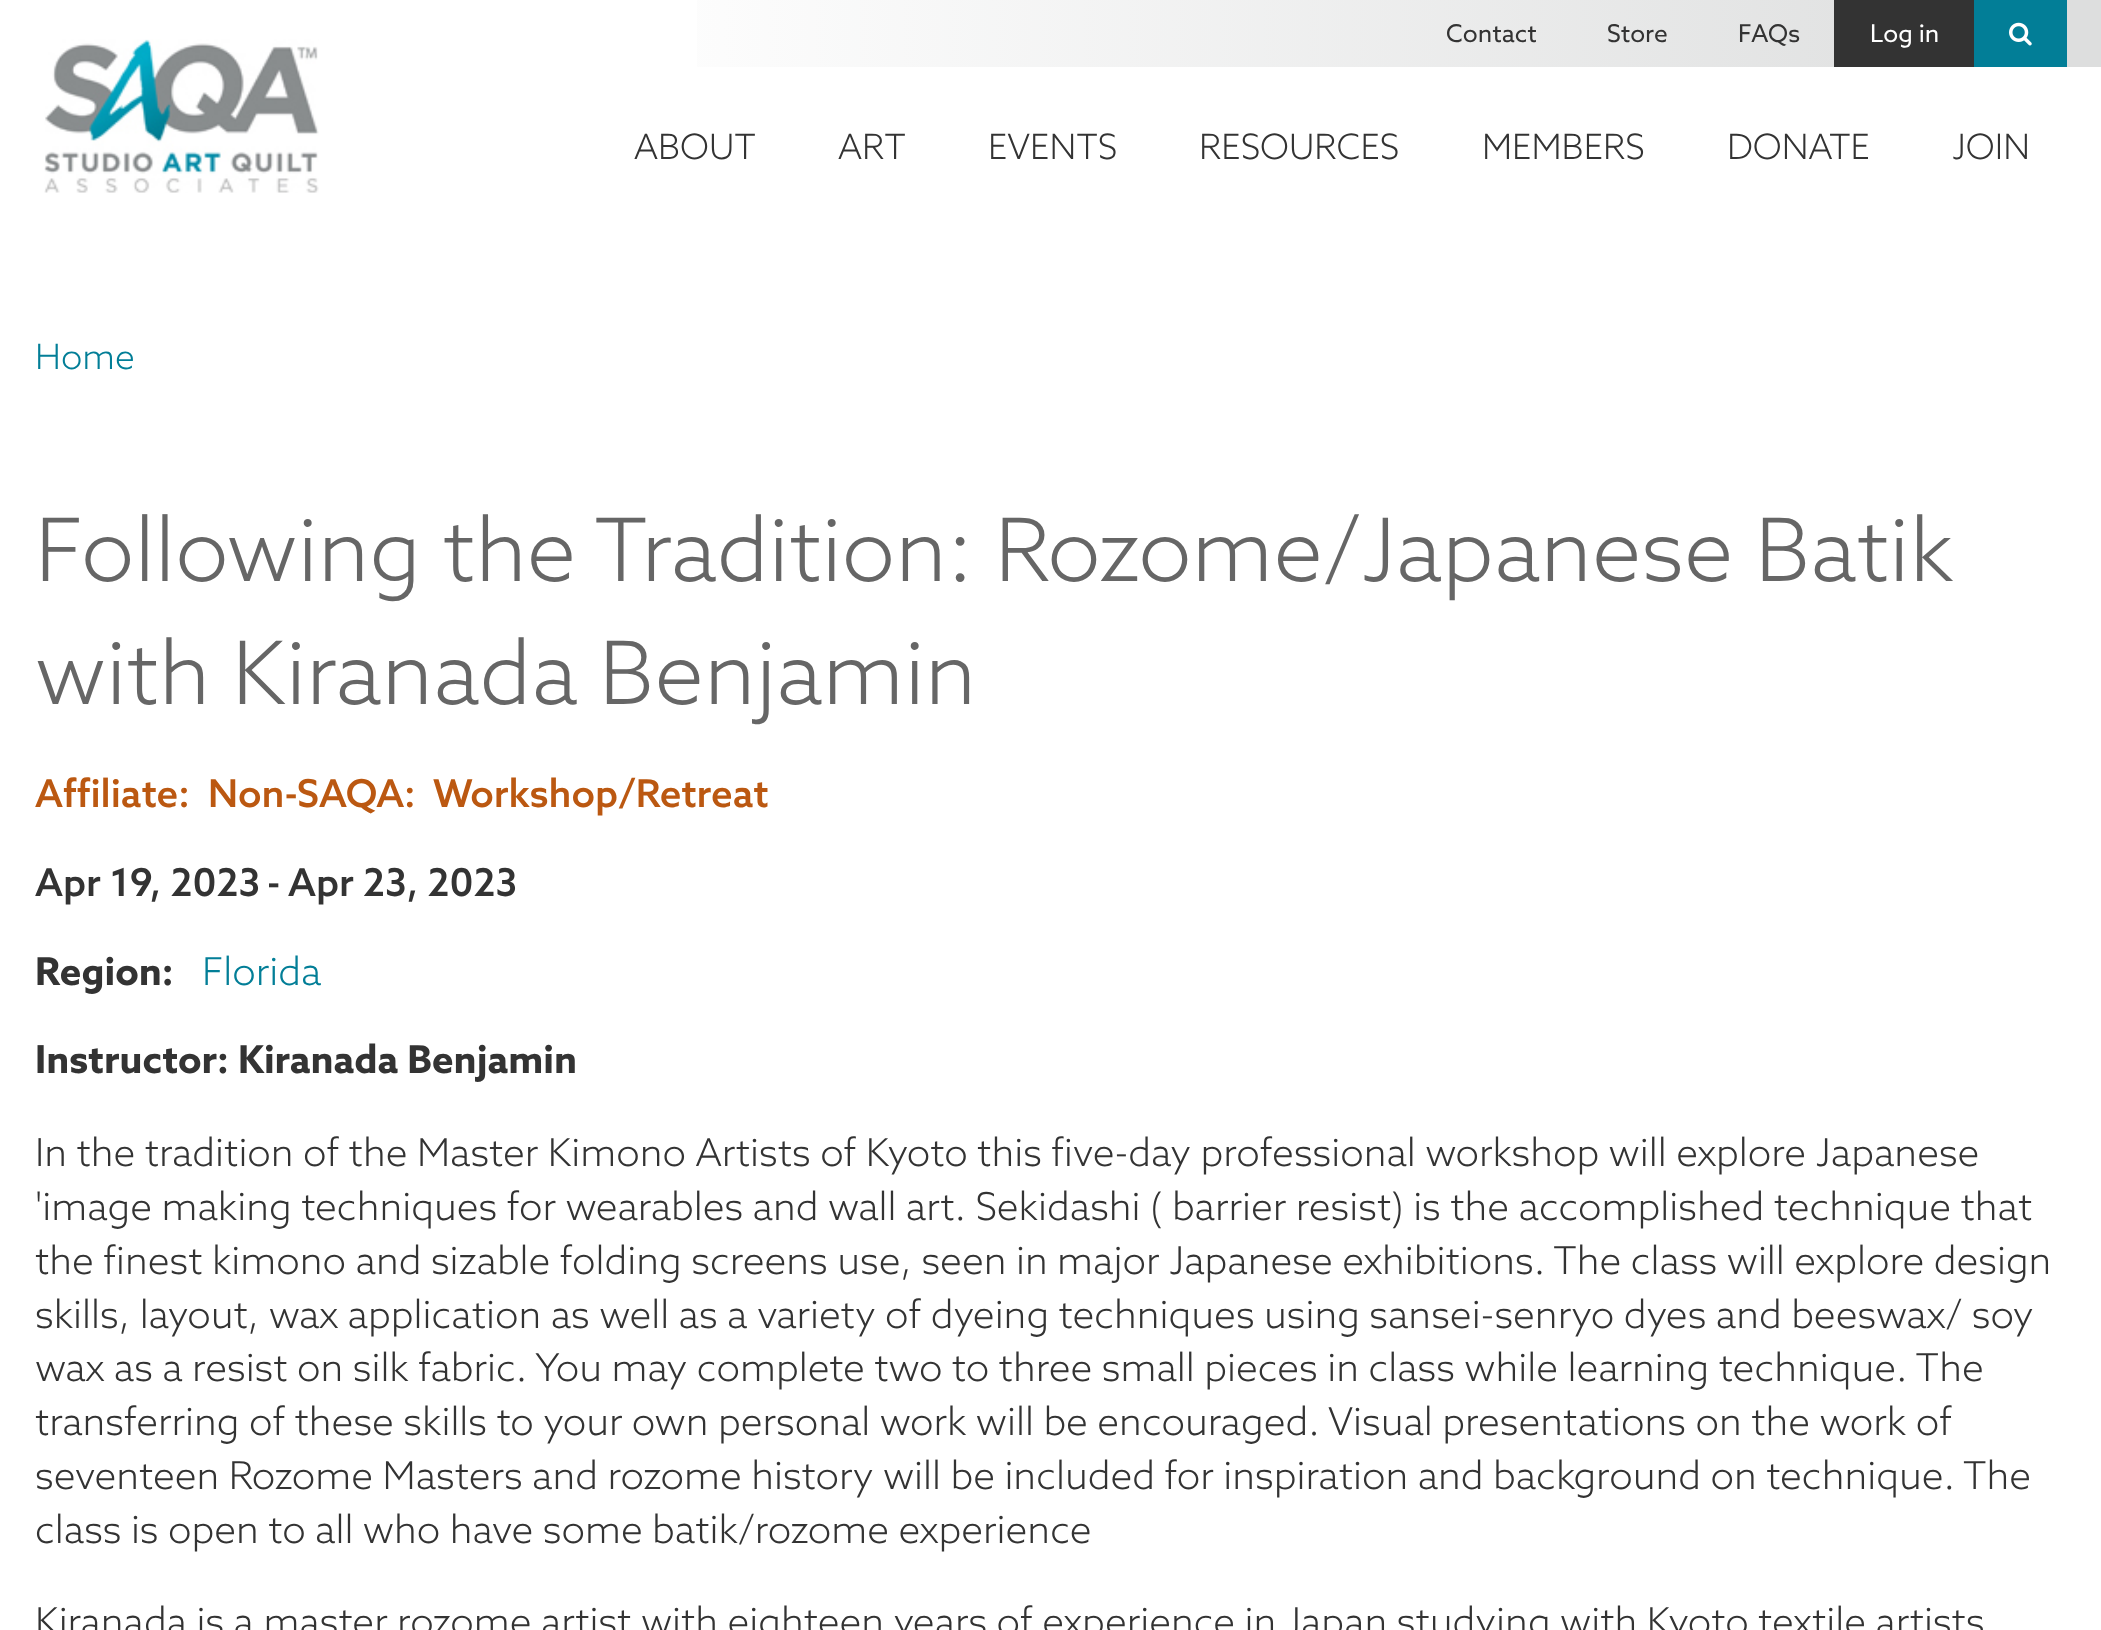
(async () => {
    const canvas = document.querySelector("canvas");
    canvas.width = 2101;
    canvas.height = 1630;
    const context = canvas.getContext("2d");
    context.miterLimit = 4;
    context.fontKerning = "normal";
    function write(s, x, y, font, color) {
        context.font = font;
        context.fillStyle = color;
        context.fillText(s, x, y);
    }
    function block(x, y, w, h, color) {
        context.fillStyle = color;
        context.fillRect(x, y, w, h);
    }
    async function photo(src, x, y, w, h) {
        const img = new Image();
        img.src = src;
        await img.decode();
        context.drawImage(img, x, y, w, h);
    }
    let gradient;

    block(0, 0, 2101, 1630, "rgb(255, 255, 255)");
    await photo("media/1.png", 44, 39, 275, 154);
    gradient = context.createLinearGradient(588, 33, 2067, 33);
    gradient.addColorStop(0, "rgb(255, 255, 255)");
    gradient.addColorStop(1, "rgb(221, 222, 222)");
    context.fillStyle = gradient;
    context.fillRect(697, 0, 1137, 67);
    write("Contact", 1446, 42, "24.5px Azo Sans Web", "rgb(51, 51, 51)");
    write("Store", 1607, 42, "24.5px Azo Sans Web", "rgb(51, 51, 51)");
    write("FAQs", 1738, 42, "24.5px Azo Sans Web", "rgb(51, 51, 51)");
    block(1834, 0, 140, 67, "rgb(51, 51, 51)");
    write("Log in", 1870, 42, "24.5px Azo Sans Web", "rgb(255, 255, 255)");
    block(1974, 0, 93, 67, "rgb(2, 126, 151)");
    await photo("media/2.png", 2009, 22, 23, 24);
    block(2067, 0, 34, 67, "rgb(221, 222, 222)");
    write("ABOUT", 634, 159, "300 35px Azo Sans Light", "rgb(51, 51, 51)");
    write("ART", 838, 159, "300 35px Azo Sans Light", "rgb(51, 51, 51)");
    write("EVENTS", 988, 159, "300 35px Azo Sans Light", "rgb(51, 51, 51)");
    write("RESOURCES", 1199, 159, "300 35px Azo Sans Light", "rgb(51, 51, 51)");
    write("MEMBERS", 1482, 159, "300 35px Azo Sans Light", "rgb(51, 51, 51)");
    write("DONATE", 1727, 159, "300 35px Azo Sans Light", "rgb(51, 51, 51)");
    write("JOIN", 1952, 159, "300 35px Azo Sans Light", "rgb(51, 51, 51)");
    write("Home", 35, 369, "300 35px Azo Sans Light", "rgb(2, 126, 151)");
    write("Following the Tradition: Rozome/Japanese Batik", 35, 581, "300 87.5px Azo Sans Light", "rgb(102, 102, 102)");
    write("with Kiranada Benjamin", 35, 704, "300 87.5px Azo Sans Light", "rgb(102, 102, 102)");
    write("Affiliate:", 35, 807, "500 38.5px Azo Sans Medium", "rgb(187, 88, 17)");
    write("Non-SAQA:", 208, 807, "500 38.5px Azo Sans Medium", "rgb(187, 88, 17)");
    write("Workshop/Retreat", 433, 807, "500 38.5px Azo Sans Medium", "rgb(187, 88, 17)");
    write("Apr 19, 2023", 35, 896, "500 38.5px Azo Sans Medium", "rgb(51, 51, 51)");
    write("-", 267, 896, "500 38.5px Azo Sans Medium", "rgb(51, 51, 51)");
    write("Apr 23, 2023", 288, 896, "500 38.5px Azo Sans Medium", "rgb(51, 51, 51)");
    write("Region:", 35, 985, "bold 38.5px Azo Sans Web", "rgb(51, 51, 51)");
    write("Florida", 202, 985, "300 38.5px Azo Sans Light", "rgb(2, 126, 151)");
    write("Instructor: Kiranada Benjamin", 35, 1073, "bold 38.5px Azo Sans Web", "rgb(51, 51, 51)");
    write("In the tradition of the Master Kimono Artists of Kyoto this five-day professional workshop will explore Japanese", 35, 1166, "300 38.5px Azo Sans Light", "rgb(51, 51, 51)");
    write("'image making techniques for wearables and wall art. Sekidashi ( barrier resist) is the accomplished technique that", 35, 1220, "300 38.5px Azo Sans Light", "rgb(51, 51, 51)");
    write("the finest kimono and sizable folding screens use, seen in major Japanese exhibitions. The class will explore design", 35, 1274, "300 38.5px Azo Sans Light", "rgb(51, 51, 51)");
    write("skills, layout, wax application as well as a variety of dyeing techniques using sansei-senryo dyes and beeswax/ soy", 35, 1328, "300 38.5px Azo Sans Light", "rgb(51, 51, 51)");
    write("wax as a resist on silk fabric. You may complete two to three small pieces in class while learning technique. The", 35, 1381, "300 38.5px Azo Sans Light", "rgb(51, 51, 51)");
    write("transferring of these skills to your own personal work will be encouraged. Visual presentations on the work of", 35, 1435, "300 38.5px Azo Sans Light", "rgb(51, 51, 51)");
    write("seventeen Rozome Masters and rozome history will be included for inspiration and background on technique. The", 35, 1489, "300 38.5px Azo Sans Light", "rgb(51, 51, 51)");
    write("class is open to all who have some batik/rozome experience", 35, 1543, "300 38.5px Azo Sans Light", "rgb(51, 51, 51)");
    write("Kiranada is a master rozome artist with eighteen years of experience in Japan studying with Kyoto textile artists", 35, 1635, "300 38.5px Azo Sans Light", "rgb(51, 51, 51)");
})();
